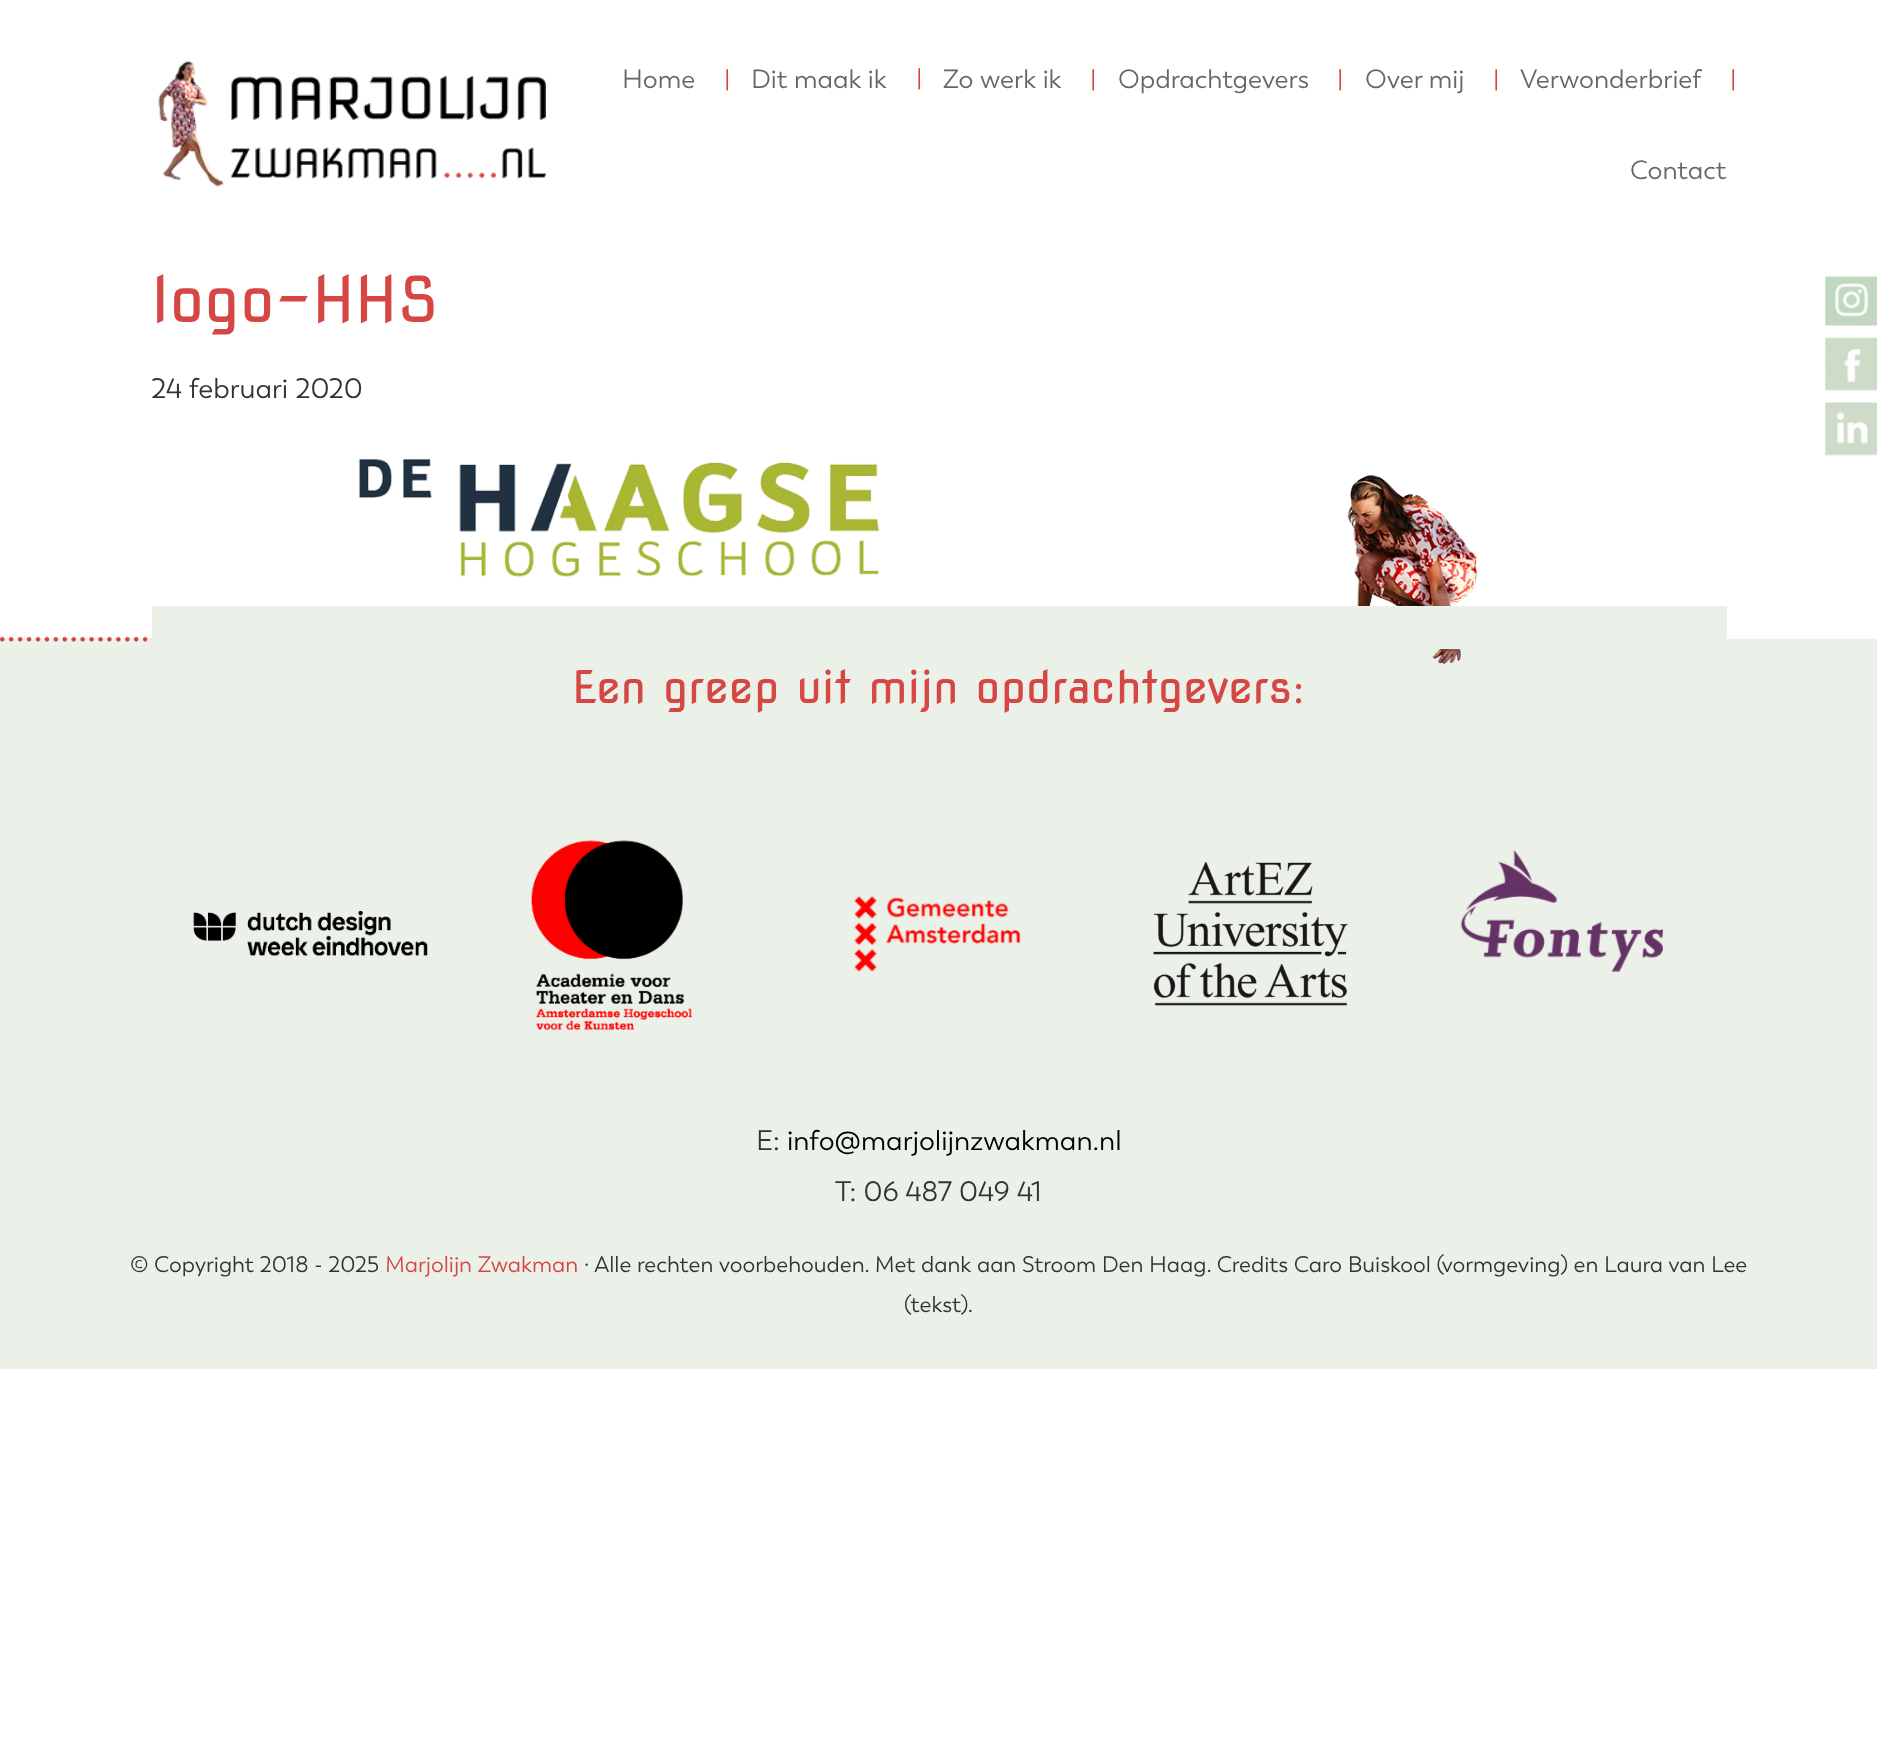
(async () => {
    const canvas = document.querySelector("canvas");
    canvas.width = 1877;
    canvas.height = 1762;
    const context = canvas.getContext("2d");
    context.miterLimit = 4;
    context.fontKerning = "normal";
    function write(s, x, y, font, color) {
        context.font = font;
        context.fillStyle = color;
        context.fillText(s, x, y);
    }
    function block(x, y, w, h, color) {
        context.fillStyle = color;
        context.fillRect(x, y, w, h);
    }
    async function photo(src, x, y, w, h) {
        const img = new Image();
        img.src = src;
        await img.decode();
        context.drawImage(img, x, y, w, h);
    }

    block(0, 0, 1877, 1762, "rgb(255, 255, 255)");
    await photo("media/1.png", 158, 61, 388, 126);
    write("Home", 622, 88, "26.25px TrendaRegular", "rgb(102, 102, 102)");
    write("|", 724, 88, "26.25px TrendaRegular", "rgb(214, 71, 67)");
    write("Dit maak ik", 751, 88, "26.25px TrendaRegular", "rgb(102, 102, 102)");
    write("|", 916, 87, "26.25px TrendaRegular", "rgb(214, 71, 67)");
    write("Zo werk ik", 943, 88, "26.25px TrendaRegular", "rgb(102, 102, 102)");
    write("|", 1090, 88, "26.25px TrendaRegular", "rgb(214, 71, 67)");
    write("Opdrachtgevers", 1118, 88, "26.25px TrendaRegular", "rgb(102, 102, 102)");
    write("|", 1337, 88, "26.25px TrendaRegular", "rgb(214, 71, 67)");
    write("Over mij", 1365, 88, "26.25px TrendaRegular", "rgb(102, 102, 102)");
    write("|", 1493, 88, "26.25px TrendaRegular", "rgb(214, 71, 67)");
    write("Verwonderbrief", 1520, 88, "26.25px TrendaRegular", "rgb(102, 102, 102)");
    write("|", 1730, 88, "26.25px TrendaRegular", "rgb(214, 71, 67)");
    write("Contact", 1630, 179, "26.25px TrendaRegular", "rgb(102, 102, 102)");
    write("logo-HHS", 151, 322, "63px Nova Square", "rgb(214, 71, 67)");
    write("24 februari 2020", 151, 398, "28px TrendaRegular", "rgb(51, 51, 51)");
    block(0, 653, 1877, 716, "rgb(235, 241, 232)");
    await photo("media/6.png", 0, 475, 1877, 190);
    await photo("media/2.png", 358, 458, 522, 119);
    block(152, 606, 1575, 43, "rgb(235, 241, 232)");
    await photo("media/3.png", 1825, 276, 52, 50);
    await photo("media/4.png", 1825, 337, 52, 54);
    await photo("media/5.png", 1825, 402, 52, 54);
    write("Een greep uit mijn opdrachtgevers:", 572, 703, "44.75px Nova Square", "rgb(214, 71, 67)");
    await photo("media/7.png", 193, 910, 235, 46);
    await photo("media/8.png", 531, 840, 162, 191);
    await photo("media/9.png", 854, 896, 167, 76);
    await photo("media/10.png", 1153, 861, 195, 145);
    await photo("media/11.png", 1460, 849, 204, 123);
    write("E:", 756, 1150, "28px TrendaRegular", "rgb(51, 51, 51)");
    write("info@marjolijnzwakman.nl", 787, 1150, "28px TrendaRegular", "rgb(0, 0, 0)");
    write("T: 06 487 049 41", 835, 1201, "28px TrendaRegular", "rgb(51, 51, 51)");
    write("© Copyright 2018 - 2025", 130, 1272, "22.4px TrendaRegular", "rgb(51, 51, 51)");
    write("Marjolijn Zwakman", 385, 1272, "22.4px TrendaRegular", "rgb(214, 71, 67)");
    write("· Alle rechten voorbehouden. Met dank aan Stroom Den Haag. Credits Caro Buiskool (vormgeving) en Laura van Lee", 584, 1272, "22.4px TrendaRegular", "rgb(51, 51, 51)");
    write("(tekst).", 904, 1312, "22.4px TrendaRegular", "rgb(51, 51, 51)");
})();
